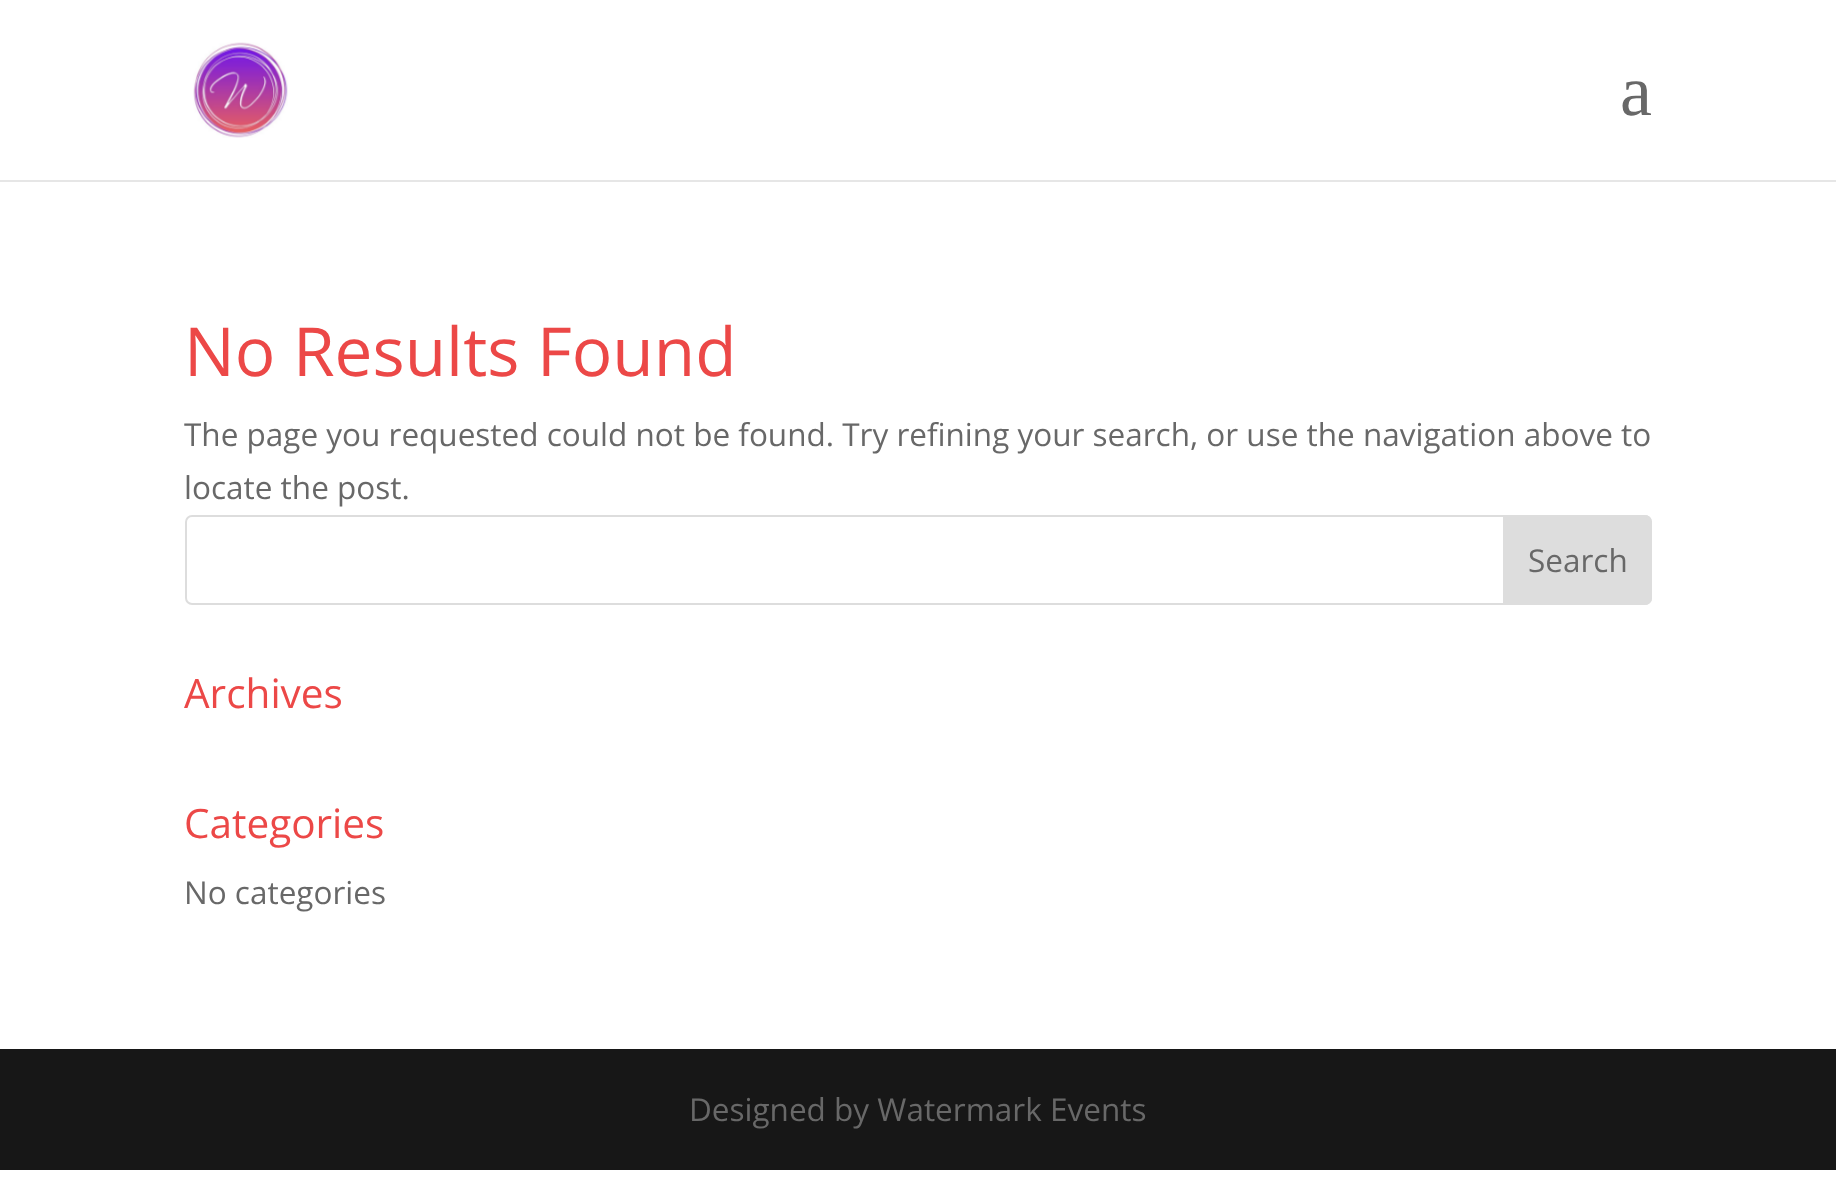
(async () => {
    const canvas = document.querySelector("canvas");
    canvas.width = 1836;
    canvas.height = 1180;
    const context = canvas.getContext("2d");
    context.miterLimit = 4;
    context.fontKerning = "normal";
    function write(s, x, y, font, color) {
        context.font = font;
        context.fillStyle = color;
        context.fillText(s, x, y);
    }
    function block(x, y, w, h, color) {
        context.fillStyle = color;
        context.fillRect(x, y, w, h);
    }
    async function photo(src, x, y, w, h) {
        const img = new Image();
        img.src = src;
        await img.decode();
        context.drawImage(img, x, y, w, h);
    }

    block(0, 0, 1836, 1180, "rgb(255, 255, 255)");
    block(0, 180, 1836, 2, "rgb(230, 230, 230)");
    await photo("media/1.png", 193, 42, 95, 96);
    write("a", 1620, 115, "72px Liberation Serif", "rgb(104, 104, 104)");
    write("No Results Found", 184, 376, "67.5px Open Sans", "rgb(236, 72, 71)");
    write("The page you requested could not be found. Try refining your search, or use the navigation above to", 184, 446, "31.5px Open Sans", "rgb(104, 104, 104)");
    write("locate the post.", 184, 499, "31.5px Open Sans", "rgb(104, 104, 104)");
    context.beginPath();
    context.roundRect(186, 516, 1465, 88, 6);
    context.strokeStyle = "rgb(221, 221, 221)";
    context.lineWidth = 2;
    context.stroke();
    context.fillStyle = "rgb(221, 221, 221)";
    context.beginPath();
    context.roundRect(1504, 516, 147, 88, [0, 6, 6, 0]);
    context.fill();
    context.stroke();
    write("Search", 1528, 572, "31.5px Open Sans", "rgb(104, 104, 104)");
    write("Archives", 184, 708, "40.5px Open Sans", "rgb(236, 72, 71)");
    write("Categories", 184, 838, "40.5px Open Sans", "rgb(236, 72, 71)");
    write("No categories", 184, 904, "31.5px Open Sans", "rgb(104, 104, 104)");
    block(0, 1049, 1836, 121, "rgb(23, 23, 23)");
    write("Designed by Watermark Events", 689, 1121, "31.5px Open Sans", "rgb(104, 104, 104)");
})();
